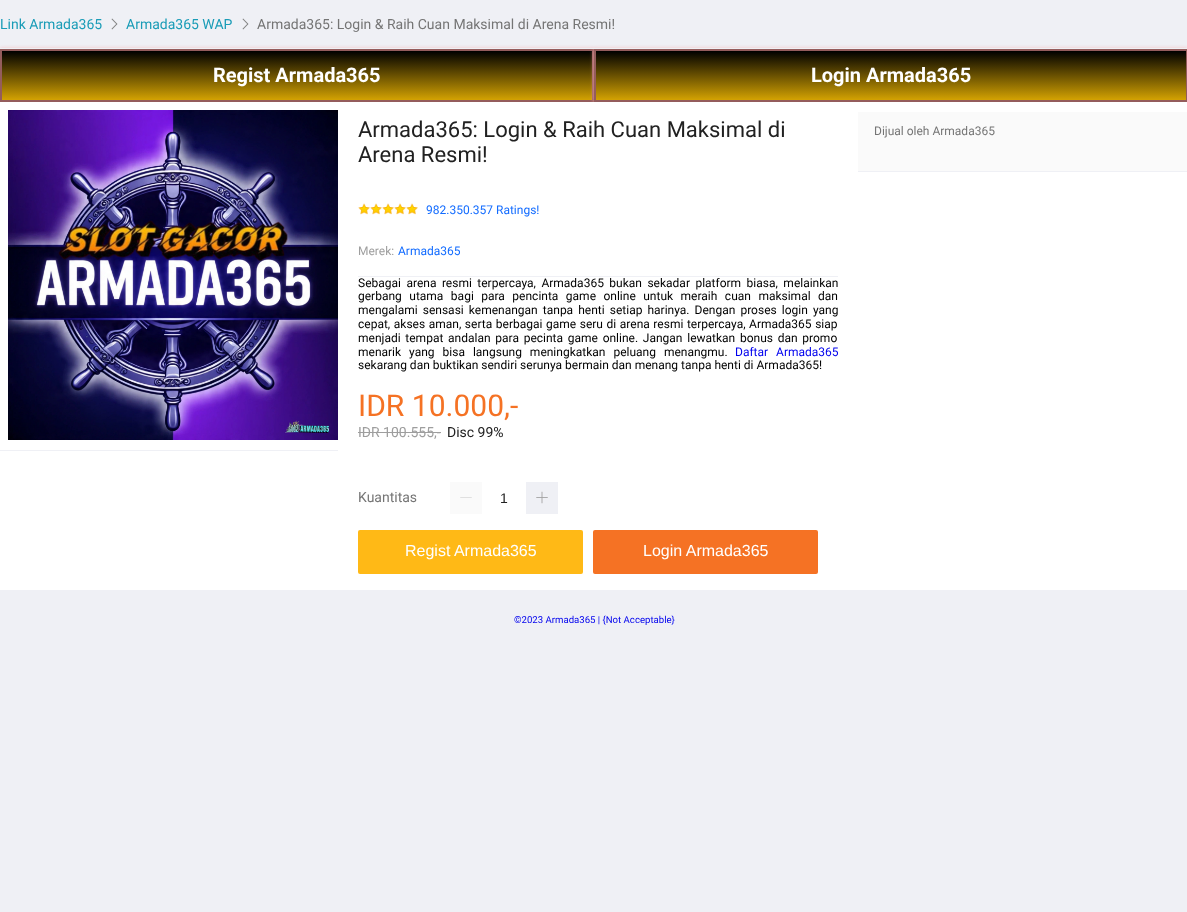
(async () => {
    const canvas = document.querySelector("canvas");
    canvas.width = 1187;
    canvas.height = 912;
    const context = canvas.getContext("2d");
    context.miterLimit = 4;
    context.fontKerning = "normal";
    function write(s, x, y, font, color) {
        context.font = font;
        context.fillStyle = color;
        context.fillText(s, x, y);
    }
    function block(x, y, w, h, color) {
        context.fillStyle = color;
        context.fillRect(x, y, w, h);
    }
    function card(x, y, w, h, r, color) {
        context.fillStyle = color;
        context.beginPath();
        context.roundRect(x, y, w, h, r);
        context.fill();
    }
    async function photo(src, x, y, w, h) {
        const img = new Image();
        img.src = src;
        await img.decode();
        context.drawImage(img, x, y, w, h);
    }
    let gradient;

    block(0, 0, 1187, 912, "rgb(239, 240, 245)");
    context.fillStyle = "rgb(250, 167, 167)";
    context.filter = "blur(2px)";
    context.beginPath();
    context.rect(0, 49, 594, 53);
    context.fill();
    context.filter = "none";
    gradient = context.createLinearGradient(297, 51, 297, 100);
    gradient.addColorStop(0, "rgb(0, 0, 0)");
    gradient.addColorStop(1, "rgb(211, 162, 2)");
    context.fillStyle = gradient;
    context.fillRect(2, 51, 590, 49);
    context.strokeStyle = "rgb(148, 92, 92)";
    context.lineWidth = 2;
    context.strokeRect(1, 50, 592, 51);
    context.fillStyle = "rgb(250, 167, 167)";
    context.filter = "blur(2px)";
    context.beginPath();
    context.rect(594, 49, 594, 53);
    context.fill();
    context.filter = "none";
    block(0, 48, 1187, 1, "rgb(239, 240, 245)");
    write("Link Armada365", 0, 29, "14px Roboto", "rgb(26, 156, 183)");
    await photo("media/1.png", 111, 18, 7, 12);
    write("Armada365 WAP", 126, 29, "14px Roboto", "rgb(26, 156, 183)");
    await photo("media/1.png", 242, 18, 7, 12);
    write("Armada365: Login & Raih Cuan Maksimal di Arena Resmi!", 257, 29, "14px Roboto", "rgb(117, 117, 117)");
    write("Regist Armada365", 213, 82, "bold 20px Roboto", "rgb(255, 255, 255)");
    gradient = context.createLinearGradient(891, 51, 891, 100);
    gradient.addColorStop(0, "rgb(0, 0, 0)");
    gradient.addColorStop(1, "rgb(211, 162, 2)");
    context.fillStyle = gradient;
    context.fillRect(596, 51, 590, 49);
    context.strokeRect(595, 50, 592, 51);
    write("Login Armada365", 811, 82, "bold 20px Roboto", "rgb(255, 255, 255)");
    block(0, 102, 1187, 488, "rgb(255, 255, 255)");
    block(0, 450, 338, 1, "rgb(239, 240, 245)");
    await photo("media/2.png", 8, 110, 330, 330);
    write("Armada365: Login & Raih Cuan Maksimal di", 358, 137, "22px Roboto", "rgb(33, 33, 33)");
    write("Arena Resmi!", 358, 162, "22px Roboto", "rgb(33, 33, 33)");
    await photo("media/3.png", 358, 203, 12, 12);
    await photo("media/3.png", 370, 203, 12, 12);
    await photo("media/3.png", 382, 203, 12, 12);
    await photo("media/3.png", 394, 203, 12, 12);
    await photo("media/3.png", 406, 203, 12, 12);
    write("982.350.357 Ratings!", 426, 214, "12px Roboto", "rgb(19, 108, 255)");
    block(358, 276, 480, 1, "rgb(239, 240, 245)");
    write("Merek:", 358, 255, "12px Roboto", "rgb(158, 158, 158)");
    write("Armada365", 398, 255, "12px Roboto", "rgb(19, 108, 255)");
    context.wordSpacing = "2.5px";
    write("Sebagai arena resmi terpercaya, Armada365 bukan sekadar platform biasa, melainkan", 358, 287, "12px Roboto", "rgb(0, 0, 0)");
    context.wordSpacing = "4.5px";
    write("gerbang utama bagi para pencinta game online untuk meraih cuan maksimal dan", 358, 300, "12px Roboto", "rgb(0, 0, 0)");
    context.wordSpacing = "2.1px";
    write("mengalami sensasi kemenangan tanpa henti setiap harinya. Dengan proses login yang", 358, 314, "12px Roboto", "rgb(0, 0, 0)");
    context.wordSpacing = "0.6px";
    write("cepat, akses aman, serta berbagai game seru di arena resmi terpercaya, Armada365 siap", 358, 328, "12px Roboto", "rgb(0, 0, 0)");
    context.wordSpacing = "1.75px";
    write("menjadi tempat andalan para pecinta game online. Jangan lewatkan bonus dan promo", 358, 342, "12px Roboto", "rgb(0, 0, 0)");
    context.wordSpacing = "5px";
    write("menarik yang bisa langsung meningkatkan peluang menangmu.", 358, 356, "12px Roboto", "rgb(0, 0, 0)");
    write("Daftar Armada365", 735, 356, "12px Roboto", "rgb(0, 0, 238)");
    context.wordSpacing = "0px";
    write("sekarang dan buktikan sendiri serunya bermain dan menang tanpa henti di Armada365!", 358, 369, "12px Roboto", "rgb(0, 0, 0)");
    write("IDR 10.000,-", 358, 416, "30px Roboto", "rgb(245, 114, 36)");
    write("IDR 100.555,-", 358, 437, "14px Roboto", "rgb(158, 158, 158)");
    block(358, 432, 83, 1, "rgb(158, 158, 158)");
    write("Disc 99%", 447, 437, "14px Roboto", "rgb(33, 33, 33)");
    write("Kuantitas", 358, 502, "14px Roboto", "rgb(117, 117, 117)");
    block(450, 482, 32, 32, "rgb(250, 250, 250)");
    await photo("media/4.png", 460, 497, 12, 1);
    block(526, 482, 32, 32, "rgb(239, 240, 245)");
    await photo("media/5.png", 536, 491, 12, 13);
    write("1", 500, 503, "14px Liberation Sans", "rgb(33, 33, 33)");
    card(358, 530, 225, 44, 2, "rgb(255, 185, 22)");
    write("Regist Armada365", 405, 556, "16px Liberation Sans", "rgb(255, 255, 255)");
    card(593, 530, 225, 44, 2, "rgb(245, 114, 36)");
    write("Login Armada365", 643, 556, "16px Liberation Sans", "rgb(255, 255, 255)");
    block(858, 112, 329, 59, "rgb(250, 250, 250)");
    write("Dijual oleh Armada365", 874, 135, "12px Roboto", "rgb(117, 117, 117)");
    block(858, 171, 329, 1, "rgb(239, 240, 245)");
    write("©2023 Armada365 | {Not Acceptable}", 514, 623, "9.6px Roboto", "rgb(0, 0, 238)");
})();
